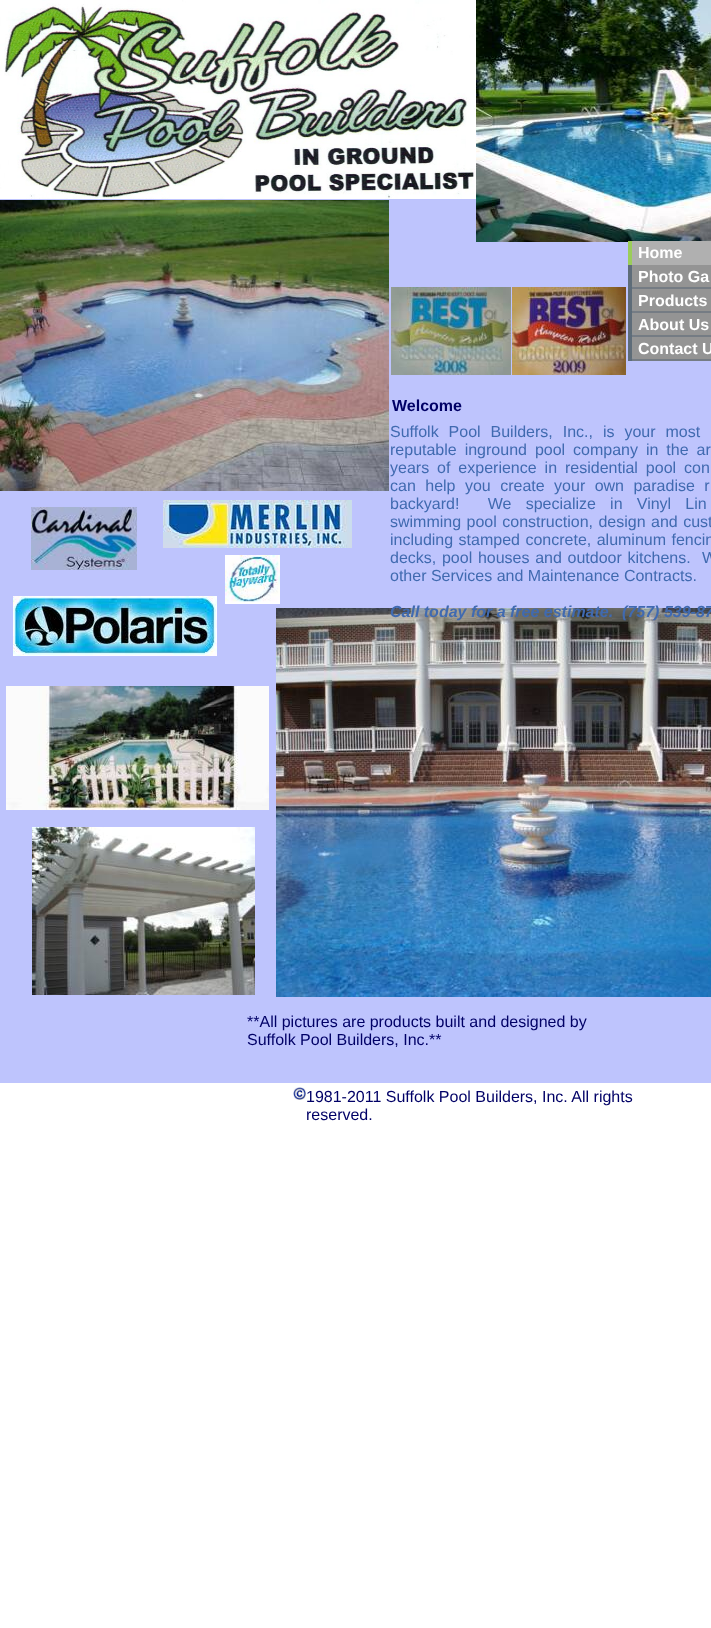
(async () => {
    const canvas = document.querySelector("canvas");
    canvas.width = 711;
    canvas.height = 1628;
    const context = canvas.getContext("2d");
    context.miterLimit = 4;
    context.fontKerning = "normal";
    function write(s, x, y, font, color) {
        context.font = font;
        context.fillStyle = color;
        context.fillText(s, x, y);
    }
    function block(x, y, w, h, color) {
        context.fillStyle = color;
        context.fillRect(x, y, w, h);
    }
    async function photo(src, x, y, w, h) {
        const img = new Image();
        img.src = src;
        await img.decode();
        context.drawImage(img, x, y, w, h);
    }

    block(0, 0, 711, 1628, "rgb(255, 255, 255)");
    await photo("media/1.png", 0, 0, 476, 199);
    block(0, 199, 711, 884, "rgb(190, 196, 253)");
    await photo("media/2.png", 476, 0, 235, 242);
    await photo("media/3.png", 0, 200, 389, 291);
    await photo("media/4.png", 391, 287, 120, 88);
    await photo("media/5.png", 512, 287, 114, 88);
    await photo("media/6.png", 628, 241, 83, 24);
    write("Home", 638, 258, "bold 16px Liberation Sans", "rgb(255, 255, 255)");
    await photo("media/7.png", 628, 265, 83, 24);
    write("Photo Ga", 638, 282, "bold 16px Liberation Sans", "rgb(255, 255, 255)");
    await photo("media/7.png", 628, 289, 83, 24);
    write("Products", 638, 306, "bold 16px Liberation Sans", "rgb(255, 255, 255)");
    await photo("media/7.png", 628, 313, 83, 24);
    write("About Us", 638, 330, "bold 16px Liberation Sans", "rgb(255, 255, 255)");
    await photo("media/7.png", 628, 337, 83, 24);
    write("Contact U", 638, 354, "bold 16px Liberation Sans", "rgb(255, 255, 255)");
    write("Welcome", 392, 411, "bold 16px Liberation Sans", "rgb(0, 0, 102)");
    await photo("media/8.png", 31, 507, 106, 63);
    await photo("media/9.png", 163, 500, 189, 48);
    context.wordSpacing = "5.5px";
    write("Suffolk Pool Builders, Inc., is your most", 390, 437, "16px Liberation Sans", "rgb(64, 106, 176)");
    context.wordSpacing = "3.5px";
    write("reputable inground pool company in the ar", 390, 455, "16px Liberation Sans", "rgb(64, 106, 176)");
    write("years of experience in residential pool con", 390, 473, "16px Liberation Sans", "rgb(64, 106, 176)");
    context.wordSpacing = "5px";
    write("can help you create your own paradise r", 390, 491, "16px Liberation Sans", "rgb(64, 106, 176)");
    context.wordSpacing = "9.75px";
    write("backyard!  We specialize in Vinyl Lin", 390, 509, "16px Liberation Sans", "rgb(64, 106, 176)");
    context.wordSpacing = "1px";
    write("swimming pool construction, design and cust", 390, 527, "16px Liberation Sans", "rgb(64, 106, 176)");
    write("including stamped concrete, aluminum fencin", 390, 545, "16px Liberation Sans", "rgb(64, 106, 176)");
    context.wordSpacing = "1.25px";
    write("decks, pool houses and outdoor kitchens.  W", 390, 563, "16px Liberation Sans", "rgb(64, 106, 176)");
    context.wordSpacing = "0px";
    write("other Services and Maintenance Contracts.", 390, 581, "16px Liberation Sans", "rgb(64, 106, 176)");
    await photo("media/12.png", 276, 608, 435, 389);
    write("Call today for a free estimate.  (757) 539-87", 390, 617, "italic bold 16px Liberation Sans", "rgb(64, 106, 176)");
    await photo("media/10.png", 225, 555, 55, 49);
    await photo("media/11.png", 13, 596, 204, 60);
    await photo("media/13.png", 6, 686, 263, 124);
    await photo("media/14.png", 32, 827, 223, 168);
    write("**All pictures are products built and designed by", 247, 1027, "16px Liberation Sans", "rgb(0, 0, 102)");
    write("Suffolk Pool Builders, Inc.**", 247, 1045, "16px Liberation Sans", "rgb(0, 0, 102)");
    await photo("media/15.png", 293, 1087, 13, 13);
    write("1981-2011 Suffolk Pool Builders, Inc. All rights", 306, 1102, "16px Liberation Sans", "rgb(0, 0, 102)");
    write("reserved.", 306, 1120, "16px Liberation Sans", "rgb(0, 0, 102)");
})();
